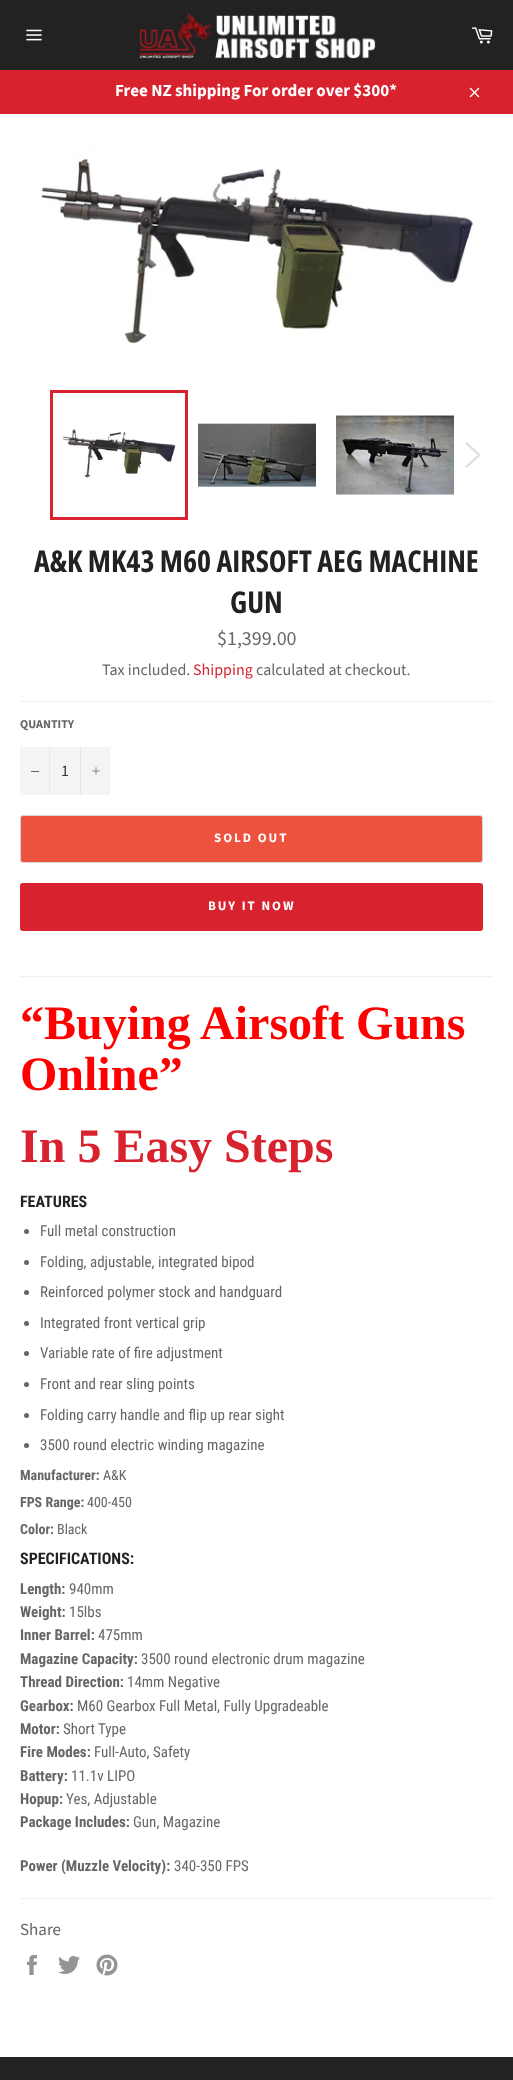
(async () => {
    const canvas = document.querySelector("canvas");
    canvas.width = 513;
    canvas.height = 2080;
    const context = canvas.getContext("2d");
    context.miterLimit = 4;
    context.fontKerning = "normal";
    function write(s, x, y, font, color) {
        context.font = font;
        context.fillStyle = color;
        context.fillText(s, x, y);
    }
    function block(x, y, w, h, color) {
        context.fillStyle = color;
        context.fillRect(x, y, w, h);
    }
    function card(x, y, w, h, r, color) {
        context.fillStyle = color;
        context.beginPath();
        context.roundRect(x, y, w, h, r);
        context.fill();
    }
    async function photo(src, x, y, w, h) {
        const img = new Image();
        img.src = src;
        await img.decode();
        context.drawImage(img, x, y, w, h);
    }

    block(0, 0, 513, 2080, "rgb(34, 34, 34)");
    await photo("media/1.png", 26, 29, 16, 12);
    await photo("media/2.png", 139, 13, 237, 46);
    await photo("media/3.png", 471, 27, 22, 17);
    block(0, 70, 513, 44, "rgb(216, 35, 47)");
    write("Free NZ shipping For order over $300*", 115, 96, "bold 17px Source Sans Pro", "rgb(255, 255, 255)");
    await photo("media/4.png", 469, 87, 11, 11);
    block(0, 114, 513, 1943, "rgb(255, 255, 255)");
    await photo("media/5.png", 41, 145, 435, 199);
    await photo("media/6.png", 63, 429, 115, 49);
    context.strokeStyle = "rgb(216, 35, 47)";
    context.lineWidth = 3;
    context.strokeRect(51.5, 391.5, 135, 127);
    await photo("media/7.png", 198, 423, 118, 64);
    await photo("media/8.png", 336, 415, 118, 80);
    context.fillStyle = "rgb(224, 224, 224)";
    context.beginPath();
    context.moveTo(465, 443.5);
    context.lineTo(467, 442);
    context.lineTo(481, 455);
    context.lineTo(467, 468);
    context.lineTo(465, 466.5);
    context.lineTo(477.5, 455);
    context.closePath();
    context.fill();
    write("A&K MK43 M60 AIRSOFT AEG MACHINE", 34, 572, "bold 30px Open Sans Condensed", "rgb(34, 34, 34)");
    write("GUN", 230, 613, "bold 30px Open Sans Condensed", "rgb(34, 34, 34)");
    write("$1,399.00", 217, 645, "20px Source Sans Pro", "rgb(102, 102, 102)");
    write("Tax included.", 102, 675, "16px Source Sans Pro", "rgb(102, 102, 102)");
    write("Shipping", 193, 675, "16px Source Sans Pro", "rgb(216, 35, 47)");
    write("calculated at checkout.", 256, 675, "16px Source Sans Pro", "rgb(102, 102, 102)");
    block(20, 701, 473, 1, "rgb(240, 240, 240)");
    write("QUANTITY", 20, 728, "bold 12px Source Sans Pro", "rgb(102, 102, 102)");
    block(20, 747, 90, 48, "rgb(244, 244, 244)");
    block(49, 747, 1, 48, "rgb(231, 231, 231)");
    block(31, 771, 8, 1, "rgb(102, 102, 102)");
    write("1", 61, 776, "16px Source Sans Pro", "rgb(51, 51, 51)");
    block(80, 747, 1, 48, "rgb(231, 231, 231)");
    await photo("media/9.png", 92, 767, 8, 8);
    context.fillStyle = "rgb(236, 82, 62)";
    context.beginPath();
    context.roundRect(20.5, 815.5, 462, 47, 2.5);
    context.fill();
    context.strokeStyle = "rgb(213, 213, 213)";
    context.lineWidth = 1;
    context.stroke();
    context.letterSpacing = "2px";
    write("SOLD OUT", 214, 842, "bold 13px Source Sans Pro", "rgb(255, 255, 255)");
    card(20, 883, 463, 48, 3, "rgb(216, 35, 47)");
    write("BUY IT NOW", 208, 910, "bold 13px Source Sans Pro", "rgb(255, 255, 255)");
    block(20, 976, 473, 1, "rgb(240, 240, 240)");
    context.letterSpacing = "0px";
    write("“Buying Airsoft Guns", 20, 1039, "bold 48px Liberation Serif", "rgb(255, 0, 0)");
    write("Online”", 20, 1090, "bold 48px Liberation Serif", "rgb(255, 0, 0)");
    write("In 5 Easy Steps", 20, 1162, "bold 48px Liberation Serif", "rgb(216, 35, 47)");
    write("FEATURES", 20, 1207, "bold 16px Roboto Condensed", "rgb(34, 34, 34)");
    context.fillStyle = "rgb(102, 102, 102)";
    context.beginPath();
    context.arc(26.5, 1231.5, 2.5, 0, Math.PI * 2);
    context.fill();
    write("Full metal construction", 40, 1236, "15px Roboto Condensed", "rgb(102, 102, 102)");
    context.beginPath();
    context.arc(26.5, 1262.5, 2.5, 0, Math.PI * 2);
    context.fill();
    write("Folding, adjustable, integrated bipod", 40, 1267, "15px Roboto Condensed", "rgb(102, 102, 102)");
    context.beginPath();
    context.arc(26.5, 1292.5, 2.5, 0, Math.PI * 2);
    context.fill();
    write("Reinforced polymer stock and handguard", 40, 1297, "15px Roboto Condensed", "rgb(102, 102, 102)");
    context.beginPath();
    context.arc(26.5, 1323.5, 2.5, 0, Math.PI * 2);
    context.fill();
    write("Integrated front vertical grip", 40, 1328, "15px Roboto Condensed", "rgb(102, 102, 102)");
    context.beginPath();
    context.arc(26.5, 1353.5, 2.5, 0, Math.PI * 2);
    context.fill();
    write("Variable rate of fire adjustment", 40, 1358, "15px Roboto Condensed", "rgb(102, 102, 102)");
    context.beginPath();
    context.arc(26.5, 1384.5, 2.5, 0, Math.PI * 2);
    context.fill();
    write("Front and rear sling points", 40, 1389, "15px Roboto Condensed", "rgb(102, 102, 102)");
    context.beginPath();
    context.arc(26.5, 1415.5, 2.5, 0, Math.PI * 2);
    context.fill();
    write("Folding carry handle and flip up rear sight", 40, 1420, "15px Roboto Condensed", "rgb(102, 102, 102)");
    context.beginPath();
    context.arc(26.5, 1445.5, 2.5, 0, Math.PI * 2);
    context.fill();
    write("3500 round electric winding magazine", 40, 1450, "15px Roboto Condensed", "rgb(102, 102, 102)");
    write("Manufacturer:", 20, 1480, "bold 14px Roboto Condensed", "rgb(102, 102, 102)");
    write("A&K", 103, 1480, "14px Roboto Condensed", "rgb(102, 102, 102)");
    write("FPS Range:", 20, 1507, "bold 14px Roboto Condensed", "rgb(102, 102, 102)");
    write("400-450", 87, 1507, "14px Roboto Condensed", "rgb(102, 102, 102)");
    write("Color:", 20, 1534, "bold 14px Roboto Condensed", "rgb(102, 102, 102)");
    write("Black", 57, 1534, "14px Roboto Condensed", "rgb(102, 102, 102)");
    write("SPECIFICATIONS:", 20, 1564, "bold 16px Roboto Condensed", "rgb(34, 34, 34)");
    write("Length:", 20, 1594, "bold 15px Roboto Condensed", "rgb(102, 102, 102)");
    write("940mm", 69, 1594, "15px Roboto Condensed", "rgb(102, 102, 102)");
    write("Weight:", 20, 1617, "bold 15px Roboto Condensed", "rgb(102, 102, 102)");
    write("15lbs", 69, 1617, "15px Roboto Condensed", "rgb(102, 102, 102)");
    write("Inner Barrel:", 20, 1640, "bold 15px Roboto Condensed", "rgb(102, 102, 102)");
    write("475mm", 98, 1640, "15px Roboto Condensed", "rgb(102, 102, 102)");
    write("Magazine Capacity:", 20, 1664, "bold 15px Roboto Condensed", "rgb(102, 102, 102)");
    write("3500 round electronic drum magazine", 141, 1664, "15px Roboto Condensed", "rgb(102, 102, 102)");
    write("Thread Direction:", 20, 1687, "bold 15px Roboto Condensed", "rgb(102, 102, 102)");
    write("14mm Negative", 127, 1687, "15px Roboto Condensed", "rgb(102, 102, 102)");
    write("Gearbox:", 20, 1711, "bold 15px Roboto Condensed", "rgb(102, 102, 102)");
    write("M60 Gearbox Full Metal, Fully Upgradeable", 77, 1711, "15px Roboto Condensed", "rgb(102, 102, 102)");
    write("Motor:", 20, 1734, "bold 15px Roboto Condensed", "rgb(102, 102, 102)");
    write("Short Type", 63, 1734, "15px Roboto Condensed", "rgb(102, 102, 102)");
    write("Fire Modes:", 20, 1757, "bold 15px Roboto Condensed", "rgb(102, 102, 102)");
    write("Full-Auto, Safety", 94, 1757, "15px Roboto Condensed", "rgb(102, 102, 102)");
    write("Battery:", 20, 1781, "bold 15px Roboto Condensed", "rgb(102, 102, 102)");
    write("11.1v LIPO", 71, 1781, "15px Roboto Condensed", "rgb(102, 102, 102)");
    write("Hopup:", 20, 1804, "bold 15px Roboto Condensed", "rgb(102, 102, 102)");
    write("Yes, Adjustable", 66, 1804, "15px Roboto Condensed", "rgb(102, 102, 102)");
    write("Package Includes:", 20, 1827, "bold 15px Roboto Condensed", "rgb(102, 102, 102)");
    write("Gun, Magazine", 133, 1827, "15px Roboto Condensed", "rgb(102, 102, 102)");
    write("Power (Muzzle Velocity):", 20, 1871, "bold 15px Roboto Condensed", "rgb(102, 102, 102)");
    write("340-350 FPS", 174, 1871, "15px Roboto Condensed", "rgb(102, 102, 102)");
    block(20, 1898, 473, 1, "rgb(240, 240, 240)");
    write("Share", 20, 1935, "17px Source Sans Pro", "rgb(102, 102, 102)");
    await photo("media/10.png", 27, 1955, 10, 20);
    await photo("media/11.png", 58, 1956, 22, 18);
    await photo("media/12.png", 96, 1954, 22, 22);
})();
